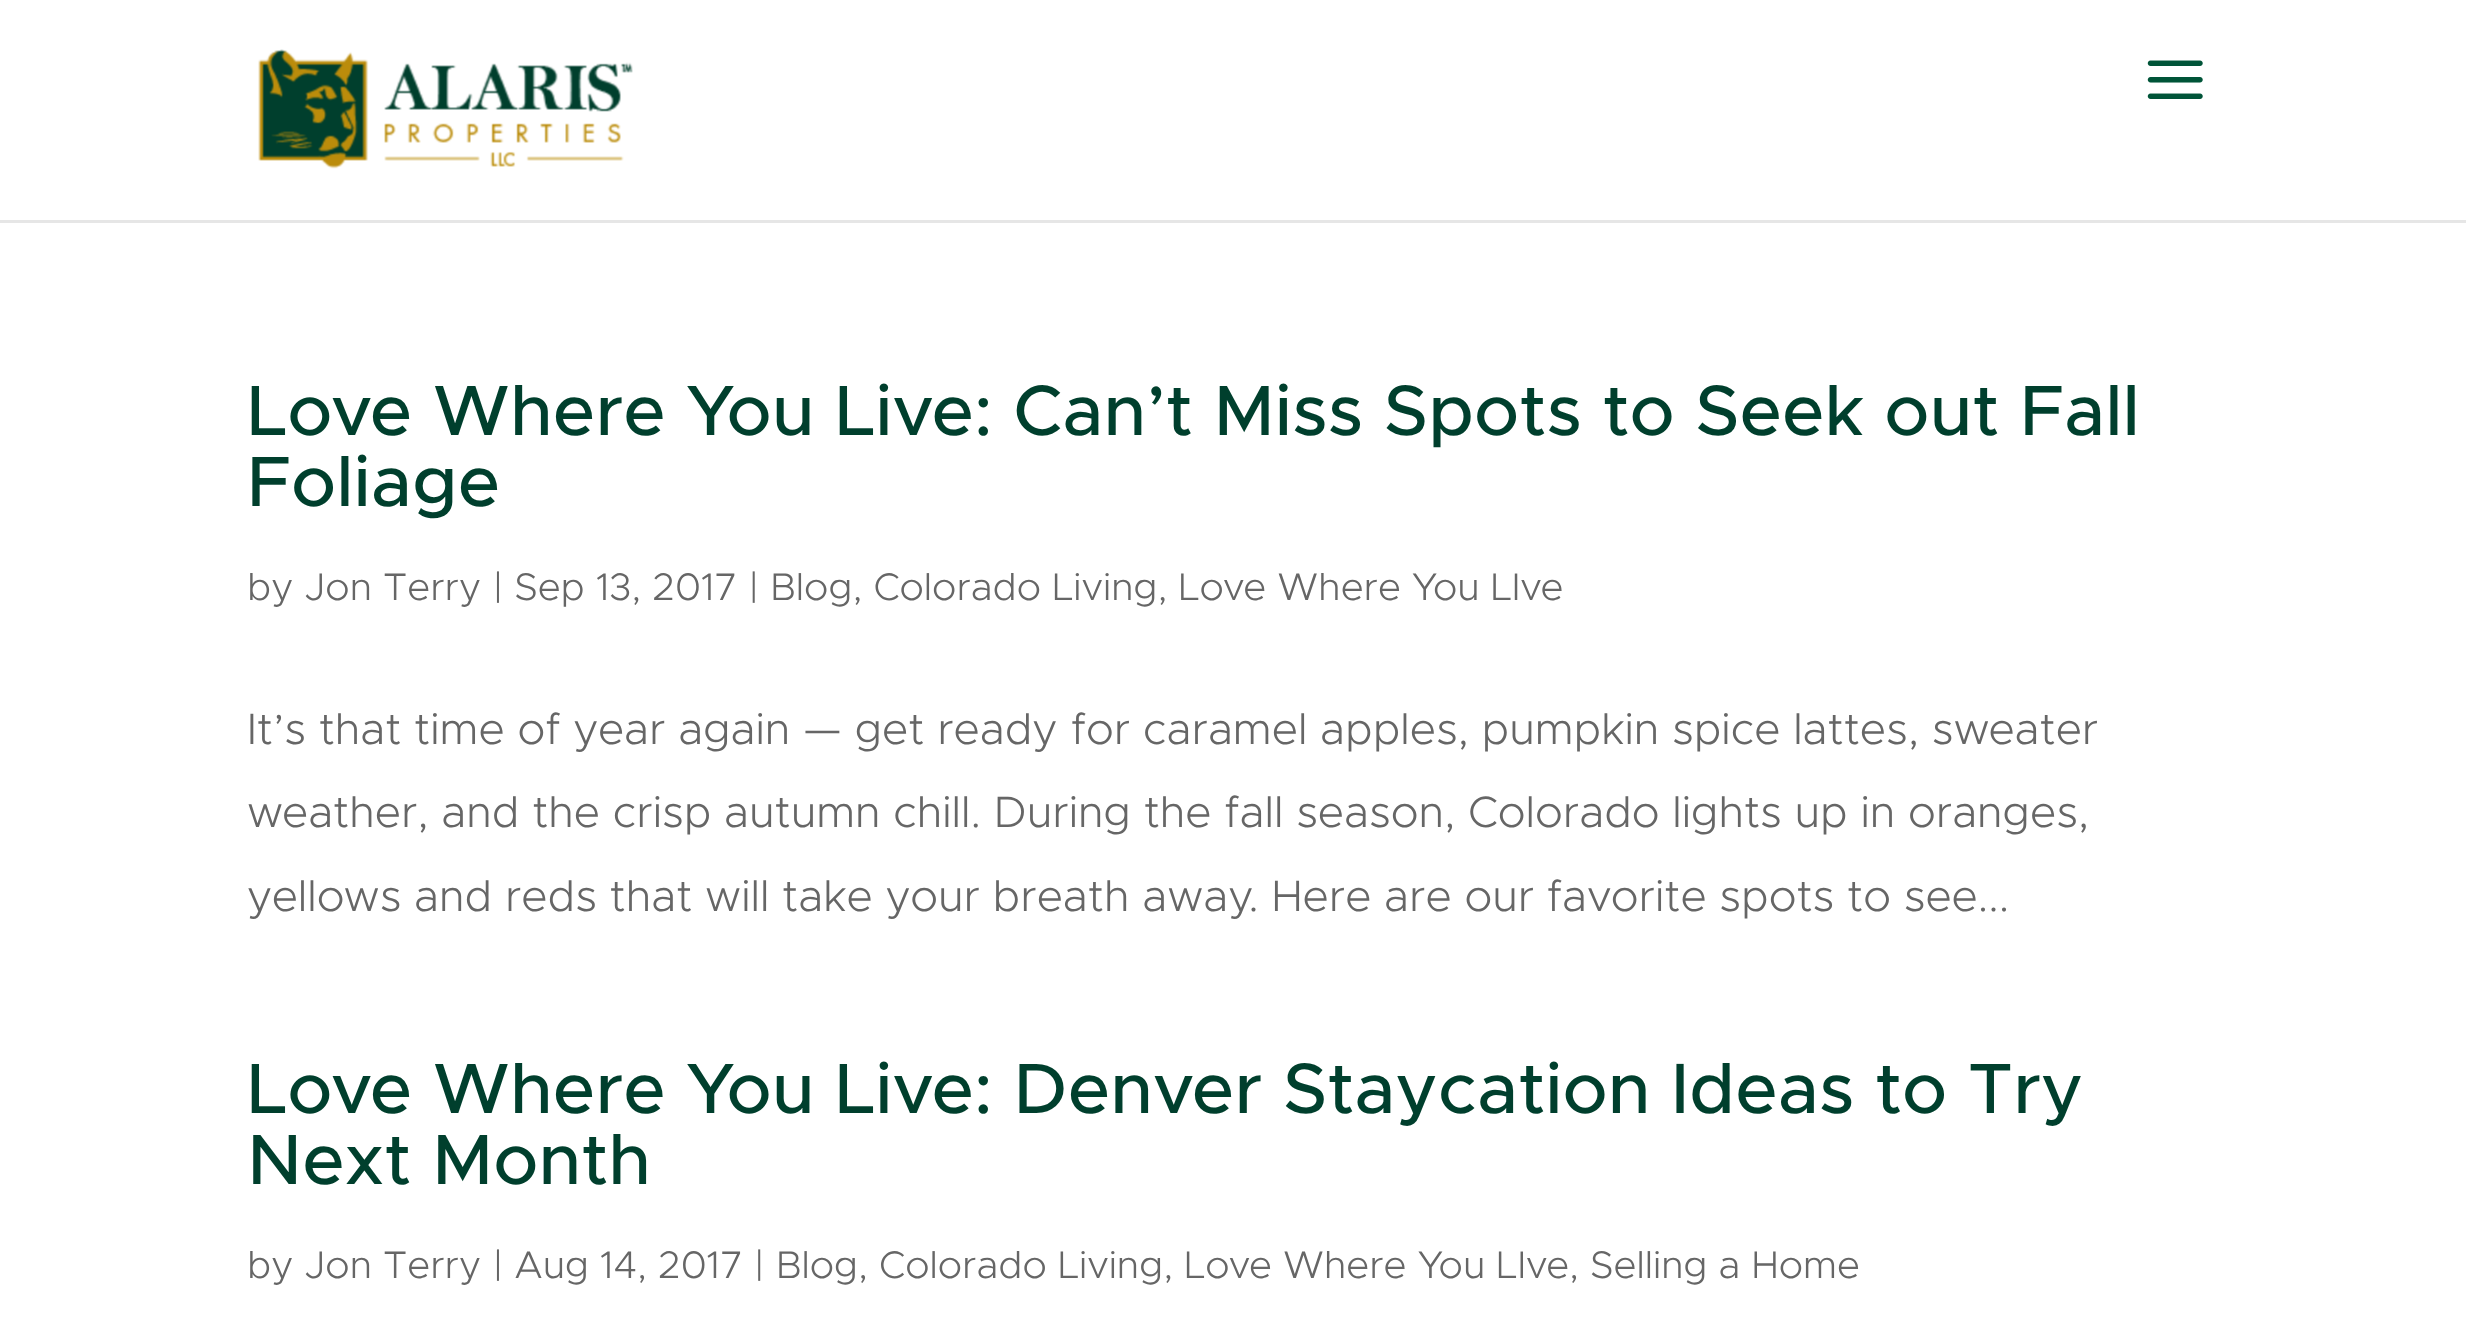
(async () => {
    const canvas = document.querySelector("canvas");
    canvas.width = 2466;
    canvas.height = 1321;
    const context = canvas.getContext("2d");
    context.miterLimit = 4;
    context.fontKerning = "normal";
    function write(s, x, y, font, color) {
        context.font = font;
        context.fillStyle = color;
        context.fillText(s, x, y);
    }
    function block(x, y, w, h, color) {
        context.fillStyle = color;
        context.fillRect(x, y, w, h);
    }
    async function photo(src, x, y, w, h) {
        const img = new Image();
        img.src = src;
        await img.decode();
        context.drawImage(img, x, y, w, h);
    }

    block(0, 0, 2466, 1321, "rgb(255, 255, 255)");
    context.fillStyle = "rgb(230, 230, 230)";
    context.beginPath();
    context.moveTo(0, 220);
    context.lineTo(0, 223);
    context.lineTo(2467, 223);
    context.lineTo(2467, 3);
    context.lineTo(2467, 220);
    context.closePath();
    context.fill();
    await photo("media/1.png", 258, 49, 375, 120);
    await photo("media/2.png", 2147, 60, 56, 39);
    write("Love Where You Live: Can’t Miss Spots to Seek out Fall", 247, 435, "500 71.5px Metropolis", "rgb(0, 63, 45)");
    write("Foliage", 247, 506, "500 71.5px Metropolis", "rgb(0, 63, 45)");
    write("by Jon Terry | Sep 13, 2017 | Blog, Colorado Living, Love Where You LIve", 247, 600, "300 38.5px Metropolis", "rgb(102, 102, 102)");
    write("It’s that time of year again — get ready for caramel apples, pumpkin spice lattes, sweater", 247, 744, "300 44px Metropolis", "rgb(102, 102, 102)");
    write("weather, and the crisp autumn chill. During the fall season, Colorado lights up in oranges,", 247, 827, "300 44px Metropolis", "rgb(102, 102, 102)");
    write("yellows and reds that will take your breath away. Here are our favorite spots to see...", 247, 911, "300 44px Metropolis", "rgb(102, 102, 102)");
    write("Love Where You Live: Denver Staycation Ideas to Try", 247, 1113, "500 71.5px Metropolis", "rgb(0, 63, 45)");
    write("Next Month", 247, 1184, "500 71.5px Metropolis", "rgb(0, 63, 45)");
    write("by Jon Terry | Aug 14, 2017 | Blog, Colorado Living, Love Where You LIve, Selling a Home", 247, 1278, "300 38.5px Metropolis", "rgb(102, 102, 102)");
})();
